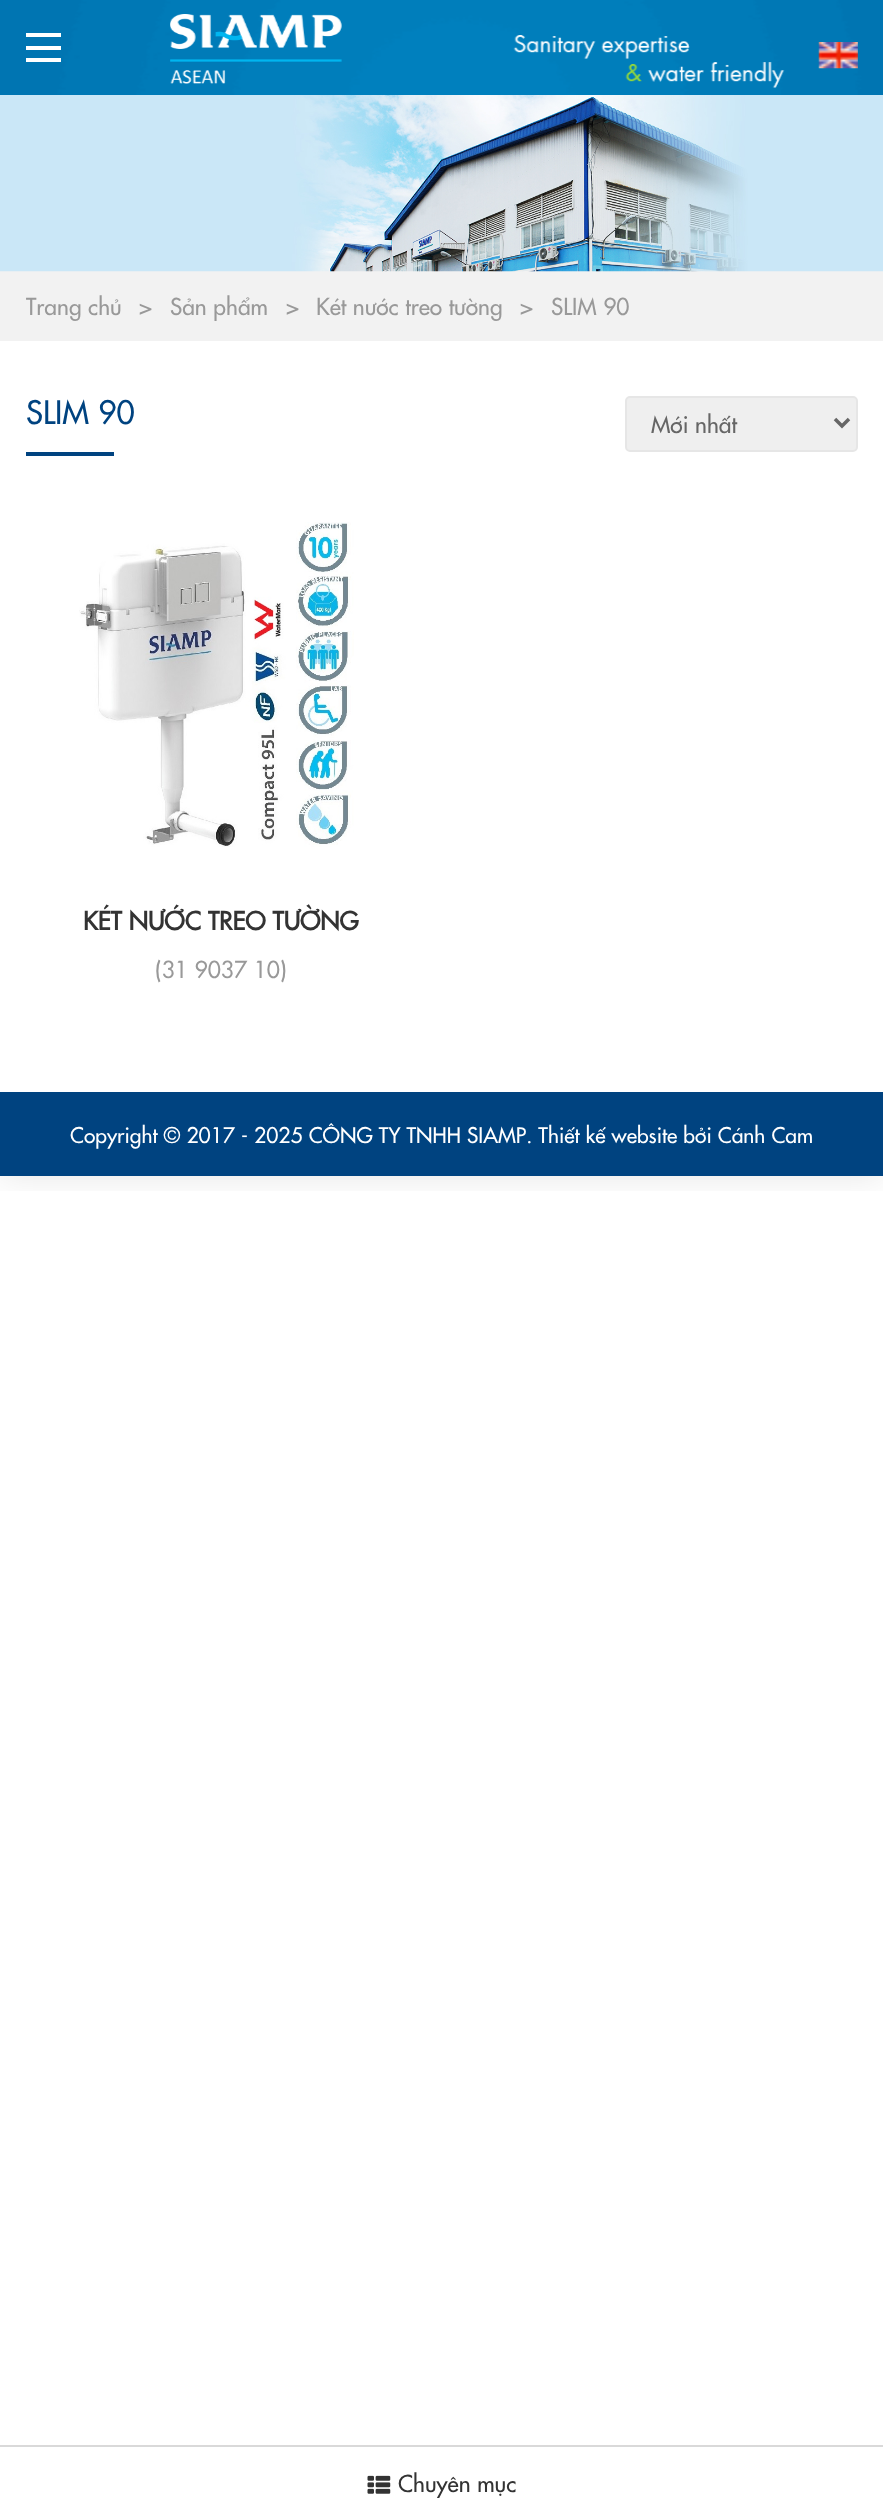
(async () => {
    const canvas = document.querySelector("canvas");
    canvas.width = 883;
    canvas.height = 2516;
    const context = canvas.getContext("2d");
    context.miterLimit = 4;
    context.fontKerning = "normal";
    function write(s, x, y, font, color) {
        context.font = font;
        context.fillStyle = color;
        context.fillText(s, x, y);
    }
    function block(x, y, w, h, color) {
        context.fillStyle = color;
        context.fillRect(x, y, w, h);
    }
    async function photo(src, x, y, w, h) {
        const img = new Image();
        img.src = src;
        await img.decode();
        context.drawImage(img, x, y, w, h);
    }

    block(0, 0, 883, 2516, "rgb(255, 255, 255)");
    context.save();
    context.beginPath();
    context.rect(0, 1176, 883, 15);
    context.clip();
    context.fillStyle = "rgba(0, 0, 0, 0.1)";
    context.filter = "blur(17.5px)";
    context.beginPath();
    context.rect(0, 0, 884, 1176);
    context.fill();
    context.filter = "none";
    context.restore();
    await photo("media/1.png", 0, 0, 883, 95);
    block(26, 33, 35, 4, "rgb(255, 255, 255)");
    block(26, 46, 35, 4, "rgb(255, 255, 255)");
    block(26, 58, 35, 4, "rgb(255, 255, 255)");
    await photo("media/2.png", 170, 14, 172, 70);
    await photo("media/3.png", 513, 35, 272, 53);
    await photo("media/4.png", 818, 42, 40, 27);
    block(0, 271, 883, 70, "rgb(242, 242, 242)");
    await photo("media/5.png", 0, 95, 883, 177);
    write("Trang chủ", 26, 315, "22.75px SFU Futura", "rgb(153, 153, 153)");
    write(">", 139, 315, "22.75px SFU Futura", "rgb(153, 153, 153)");
    write("Sản phẩm", 170, 315, "22.75px SFU Futura", "rgb(153, 153, 153)");
    write(">", 286, 315, "22.75px SFU Futura", "rgb(153, 153, 153)");
    write("Két nước treo tường", 316, 315, "22.75px SFU Futura", "rgb(153, 153, 153)");
    write(">", 520, 315, "22.75px SFU Futura", "rgb(153, 153, 153)");
    write("SLIM 90", 551, 315, "22.75px SFU Futura", "rgb(153, 153, 153)");
    write("SLIM 90", 26, 424, "31.5px SFU Futura", "rgb(0, 67, 128)");
    block(26, 452, 88, 4, "rgb(0, 67, 128)");
    context.fillStyle = "rgb(239, 239, 239)";
    context.beginPath();
    context.roundRect(626, 397, 231, 54, 4);
    context.fill();
    context.strokeStyle = "rgb(230, 230, 230)";
    context.lineWidth = 2;
    context.stroke();
    context.beginPath();
    context.moveTo(835, 419);
    context.lineTo(842, 426);
    context.lineTo(849, 419);
    context.strokeStyle = "rgb(102, 102, 102)";
    context.lineWidth = 3.5;
    context.stroke();
    write("Mới nhất", 651, 433, "22.75px SFU Futura", "rgb(102, 102, 102)");
    await photo("media/6.png", 79, 522, 275, 325);
    write("KÉT NƯỚC TREO TƯỜNG", 83, 930, "bold 24.5px SFU Futura", "rgb(51, 51, 51)");
    write("(31 9037 10)", 155, 978, "22.75px SFU Futura", "rgb(153, 153, 153)");
    block(0, 2445, 883, 2, "rgb(217, 217, 217)");
    await photo("media/7.png", 367, 2475, 24, 19);
    write("Chuyên mục", 398, 2492, "22.75px SFU Futura", "rgb(51, 51, 51)");
    block(0, 1092, 883, 84, "rgb(0, 67, 128)");
    write("Copyright © 2017 - 2025 CÔNG TY TNHH SIAMP. Thiết kế website bởi Cánh Cam", 70, 1143, "21px SFU Futura", "rgb(255, 255, 255)");
})();
